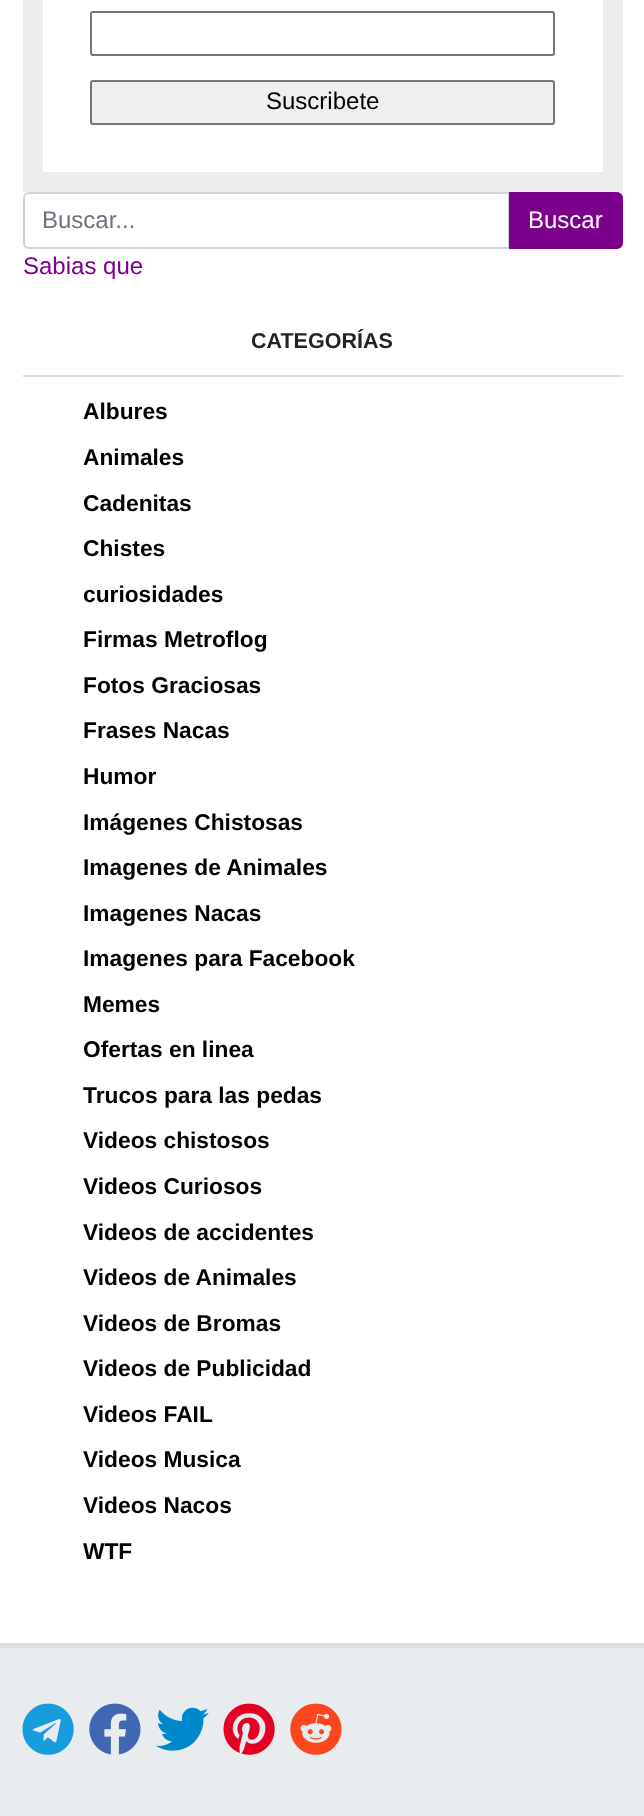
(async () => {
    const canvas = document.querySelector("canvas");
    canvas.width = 644;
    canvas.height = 1816;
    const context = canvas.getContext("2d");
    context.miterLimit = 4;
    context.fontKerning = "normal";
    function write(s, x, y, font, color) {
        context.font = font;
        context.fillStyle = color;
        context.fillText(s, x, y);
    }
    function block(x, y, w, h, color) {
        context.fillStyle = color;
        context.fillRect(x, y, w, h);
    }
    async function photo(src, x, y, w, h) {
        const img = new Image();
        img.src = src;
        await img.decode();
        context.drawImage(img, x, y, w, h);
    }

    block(0, 0, 644, 1816, "rgb(255, 255, 255)");
    context.strokeStyle = "rgb(236, 236, 236)";
    context.lineWidth = 20;
    context.strokeRect(33, -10, 580, 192);
    context.beginPath();
    context.roundRect(91, 12, 463, 43, 2);
    context.strokeStyle = "rgb(118, 118, 118)";
    context.lineWidth = 2;
    context.stroke();
    context.fillStyle = "rgb(239, 239, 239)";
    context.beginPath();
    context.roundRect(91, 81, 463, 43, 2);
    context.fill();
    context.stroke();
    write("Suscribete", 266, 109, "24px Liberation Sans", "rgb(0, 0, 0)");
    context.beginPath();
    context.roundRect(24, 193, 485, 55, [5, 0, 0, 5]);
    context.strokeStyle = "rgb(206, 212, 218)";
    context.stroke();
    write("Buscar...", 42, 228, "24px Liberation Sans", "rgb(108, 117, 125)");
    context.fillStyle = "rgb(124, 0, 140)";
    context.beginPath();
    context.roundRect(510, 193, 112, 55, [0, 5, 5, 0]);
    context.fill();
    context.strokeStyle = "rgb(124, 0, 140)";
    context.stroke();
    write("Buscar", 528, 228, "24px Liberation Sans", "rgb(255, 255, 255)");
    write("Sabias que", 23, 274, "24px Liberation Sans", "rgb(124, 0, 140)");
    block(23, 375, 600, 2, "rgb(222, 222, 222)");
    write("CATEGORÍAS", 251, 348, "bold 21.5px Liberation Sans", "rgb(33, 37, 41)");
    write("Albures", 83, 419, "bold 22.75px Liberation Sans", "rgb(0, 0, 0)");
    write("Animales", 83, 465, "bold 22.75px Liberation Sans", "rgb(0, 0, 0)");
    write("Cadenitas", 83, 511, "bold 22.75px Liberation Sans", "rgb(0, 0, 0)");
    write("Chistes", 83, 556, "bold 22.75px Liberation Sans", "rgb(0, 0, 0)");
    write("curiosidades", 83, 602, "bold 22.75px Liberation Sans", "rgb(0, 0, 0)");
    write("Firmas Metroflog", 83, 647, "bold 22.75px Liberation Sans", "rgb(0, 0, 0)");
    write("Fotos Graciosas", 83, 693, "bold 22.75px Liberation Sans", "rgb(0, 0, 0)");
    write("Frases Nacas", 83, 738, "bold 22.75px Liberation Sans", "rgb(0, 0, 0)");
    write("Humor", 83, 784, "bold 22.75px Liberation Sans", "rgb(0, 0, 0)");
    write("Imágenes Chistosas", 83, 830, "bold 22.75px Liberation Sans", "rgb(0, 0, 0)");
    write("Imagenes de Animales", 83, 875, "bold 22.75px Liberation Sans", "rgb(0, 0, 0)");
    write("Imagenes Nacas", 83, 921, "bold 22.75px Liberation Sans", "rgb(0, 0, 0)");
    write("Imagenes para Facebook", 83, 966, "bold 22.75px Liberation Sans", "rgb(0, 0, 0)");
    write("Memes", 83, 1012, "bold 22.75px Liberation Sans", "rgb(0, 0, 0)");
    write("Ofertas en linea", 83, 1057, "bold 22.75px Liberation Sans", "rgb(0, 0, 0)");
    write("Trucos para las pedas", 83, 1103, "bold 22.75px Liberation Sans", "rgb(0, 0, 0)");
    write("Videos chistosos", 83, 1148, "bold 22.75px Liberation Sans", "rgb(0, 0, 0)");
    write("Videos Curiosos", 83, 1194, "bold 22.75px Liberation Sans", "rgb(0, 0, 0)");
    write("Videos de accidentes", 83, 1240, "bold 22.75px Liberation Sans", "rgb(0, 0, 0)");
    write("Videos de Animales", 83, 1285, "bold 22.75px Liberation Sans", "rgb(0, 0, 0)");
    write("Videos de Bromas", 83, 1331, "bold 22.75px Liberation Sans", "rgb(0, 0, 0)");
    write("Videos de Publicidad", 83, 1376, "bold 22.75px Liberation Sans", "rgb(0, 0, 0)");
    write("Videos FAIL", 83, 1422, "bold 22.75px Liberation Sans", "rgb(0, 0, 0)");
    write("Videos Musica", 83, 1467, "bold 22.75px Liberation Sans", "rgb(0, 0, 0)");
    write("Videos Nacos", 83, 1513, "bold 22.75px Liberation Sans", "rgb(0, 0, 0)");
    write("WTF", 83, 1559, "bold 22.75px Liberation Sans", "rgb(0, 0, 0)");
    block(0, 1648, 644, 168, "rgb(233, 236, 239)");
    block(0, 1643, 644, 5, "rgb(222, 222, 222)");
    await photo("media/1.png", 22, 1703, 52, 52);
    await photo("media/2.png", 89, 1703, 52, 52);
    await photo("media/3.png", 156, 1707, 53, 44);
    await photo("media/4.png", 223, 1703, 52, 52);
    await photo("media/5.png", 290, 1703, 52, 52);
})();
